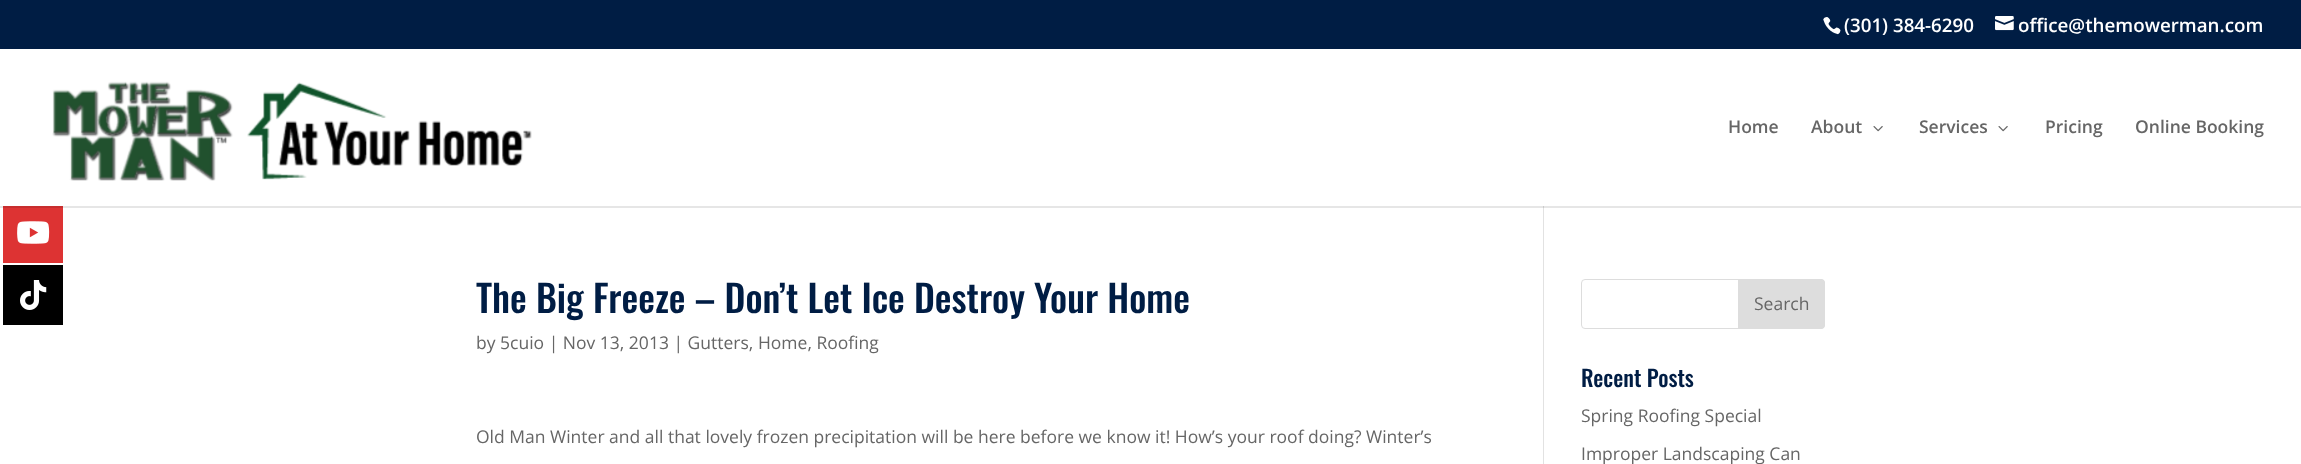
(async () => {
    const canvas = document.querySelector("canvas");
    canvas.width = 2301;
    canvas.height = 464;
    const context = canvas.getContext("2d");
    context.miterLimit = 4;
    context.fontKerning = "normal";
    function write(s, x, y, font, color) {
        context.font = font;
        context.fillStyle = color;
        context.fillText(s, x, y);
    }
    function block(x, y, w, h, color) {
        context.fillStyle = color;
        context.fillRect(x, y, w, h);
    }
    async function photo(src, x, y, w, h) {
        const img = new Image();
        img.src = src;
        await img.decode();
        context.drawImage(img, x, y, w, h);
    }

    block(0, 0, 2301, 464, "rgb(255, 255, 255)");
    block(0, 206, 2301, 2, "rgb(230, 230, 230)");
    block(3, 208, 60, 55, "rgb(221, 51, 51)");
    block(3, 206, 60, 2, "rgb(199, 46, 46)");
    await photo("media/1.png", 17, 221, 33, 23);
    block(3, 265, 60, 60, "rgb(0, 0, 0)");
    await photo("media/2.png", 20, 280, 27, 30);
    block(0, 0, 2301, 49, "rgb(0, 29, 68)");
    await photo("media/3.png", 1823, 17, 18, 18);
    write("(301) 384-6290", 1844, 32, "600 18.75px Open Sans", "rgb(255, 255, 255)");
    await photo("media/4.png", 1995, 16, 19, 15);
    write("office@themowerman.com", 2018, 32, "600 18.75px Open Sans", "rgb(255, 255, 255)");
    await photo("media/5.png", 52, 81, 480, 100);
    write("Home", 1728, 133, "600 17.5px Open Sans", "rgb(102, 102, 102)");
    write("About", 1811, 133, "600 17.5px Open Sans", "rgb(102, 102, 102)");
    await photo("media/6.png", 1873, 126, 10, 6);
    write("Services", 1919, 133, "600 17.5px Open Sans", "rgb(102, 102, 102)");
    await photo("media/6.png", 1998, 126, 10, 6);
    write("Pricing", 2045, 133, "600 17.5px Open Sans", "rgb(102, 102, 102)");
    write("Online Booking", 2135, 133, "600 17.5px Open Sans", "rgb(102, 102, 102)");
    block(1543, 206, 1, 258, "rgb(226, 226, 226)");
    block(1543, 206, 1, 2, "rgb(203, 203, 203)");
    write("The Big Freeze – Don’t Let Ice Destroy Your Home", 476, 313, "500 37.5px Oswald", "rgb(0, 29, 68)");
    write("by 5cuio | Nov 13, 2013 | Gutters, Home, Roofing", 476, 349, "17.5px Open Sans", "rgb(102, 102, 102)");
    write("Old Man Winter and all that lovely frozen precipitation will be here before we know it! How’s your roof doing? Winter’s", 476, 443, "17.5px Open Sans", "rgb(102, 102, 102)");
    context.beginPath();
    context.roundRect(1581.5, 279.5, 243, 49, 3.5);
    context.strokeStyle = "rgb(221, 221, 221)";
    context.stroke();
    context.fillStyle = "rgb(221, 221, 221)";
    context.beginPath();
    context.roundRect(1738.5, 279.5, 86, 49, [0, 3.5, 3.5, 0]);
    context.fill();
    context.stroke();
    write("Search", 1754, 310, "17.5px Open Sans", "rgb(102, 102, 102)");
    write("Recent Posts", 1581, 387, "500 22.5px Oswald", "rgb(0, 29, 68)");
    write("Spring Roofing Special", 1581, 422, "17.5px Open Sans", "rgb(102, 102, 102)");
    write("Improper Landscaping Can", 1581, 460, "17.5px Open Sans", "rgb(102, 102, 102)");
})();
